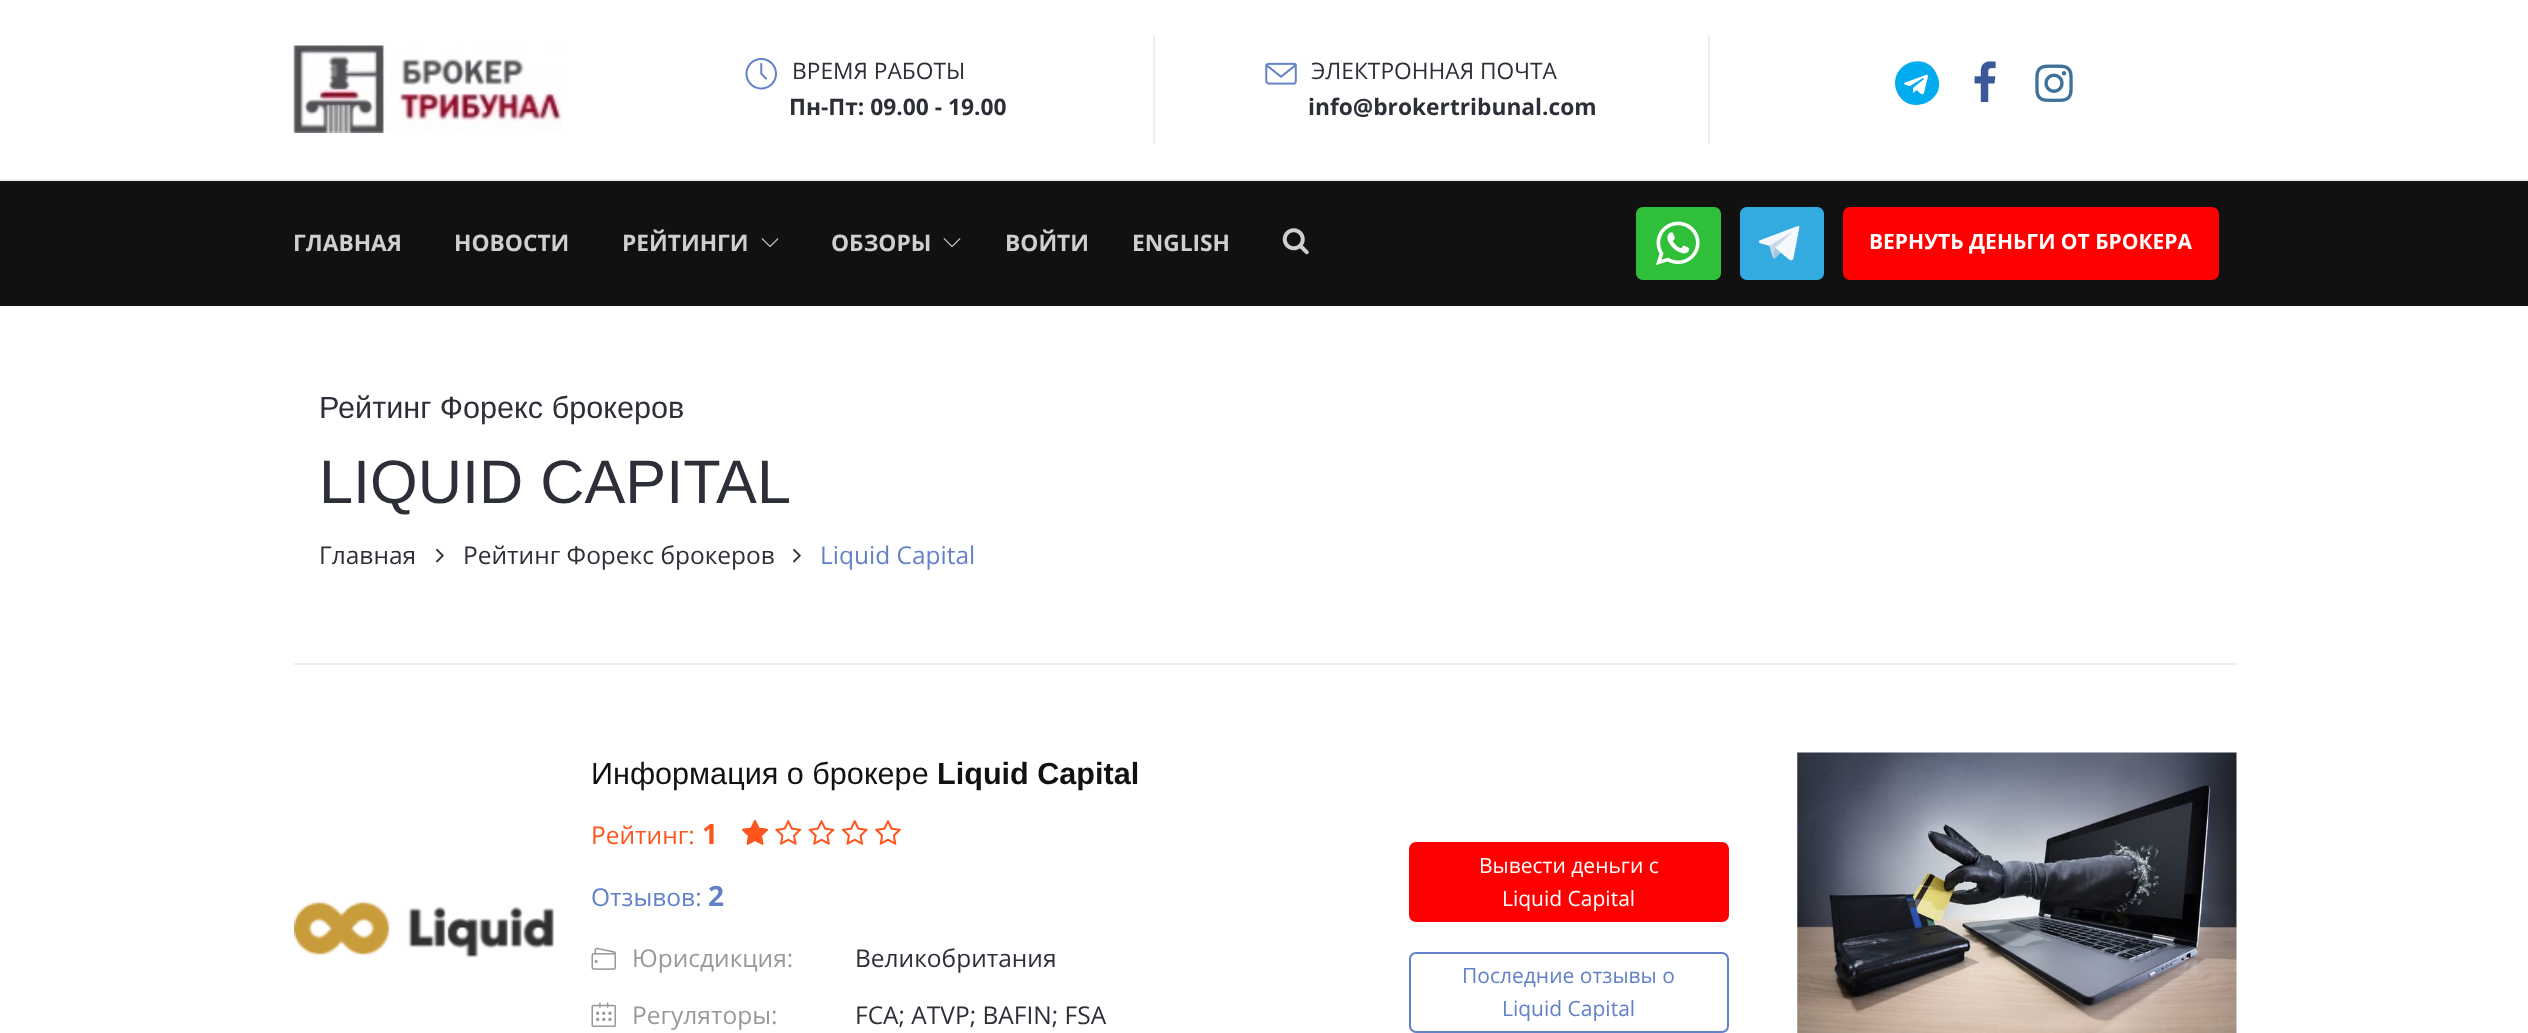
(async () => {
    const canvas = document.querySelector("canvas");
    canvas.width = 2528;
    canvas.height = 1033;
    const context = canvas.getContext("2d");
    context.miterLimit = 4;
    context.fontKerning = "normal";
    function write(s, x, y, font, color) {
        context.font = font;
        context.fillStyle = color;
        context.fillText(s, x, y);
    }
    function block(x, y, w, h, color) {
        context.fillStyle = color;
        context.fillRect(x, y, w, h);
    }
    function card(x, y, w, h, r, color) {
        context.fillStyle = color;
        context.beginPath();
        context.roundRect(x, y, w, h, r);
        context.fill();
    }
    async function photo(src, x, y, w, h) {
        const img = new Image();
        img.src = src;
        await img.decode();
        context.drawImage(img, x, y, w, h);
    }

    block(0, 0, 2528, 1033, "rgb(255, 255, 255)");
    block(0, 179, 2528, 2, "rgb(238, 238, 238)");
    await photo("media/1.png", 293, 45, 269, 88);
    block(1153, 35, 2, 109, "rgb(238, 238, 238)");
    await photo("media/2.png", 745, 58, 32, 32);
    write("ВРЕМЯ РАБОТЫ", 792, 79, "22.75px Open Sans", "rgb(44, 47, 55)");
    write("Пн-Пт: 09.00 - 19.00", 789, 115, "bold 22.75px Open Sans", "rgb(44, 47, 55)");
    block(1708, 35, 2, 109, "rgb(238, 238, 238)");
    await photo("media/3.png", 1265, 62, 32, 23);
    write("ЭЛЕКТРОННАЯ ПОЧТА", 1311, 79, "22.75px Open Sans", "rgb(44, 47, 55)");
    write("info@brokertribunal.com", 1308, 115, "bold 22.75px Open Sans", "rgb(44, 47, 55)");
    context.fillStyle = "rgb(0, 172, 238)";
    context.beginPath();
    context.moveTo(1924, 93);
    context.lineTo(1928, 76);
    context.bezierCurveTo(1928, 73, 1923, 76, 1923, 76);
    context.lineTo(1904, 83);
    context.bezierCurveTo(1903, 85, 1910, 86, 1910, 86);
    context.lineTo(1923, 78);
    context.bezierCurveTo(1923, 78, 1924, 78, 1924, 79);
    context.lineTo(1913, 88);
    context.lineTo(1913, 93);
    context.lineTo(1917, 90);
    context.bezierCurveTo(1918, 91, 1923, 97, 1924, 93);
    context.closePath();
    context.moveTo(1937, 75);
    context.bezierCurveTo(1949, 101, 1908, 118, 1897, 92);
    context.bezierCurveTo(1886, 65, 1926, 48, 1937, 75);
    context.closePath();
    context.fill();
    await photo("media/4.png", 1974, 61, 22, 41);
    await photo("media/5.png", 2035, 64, 38, 38);
    block(0, 181, 2528, 125, "rgb(17, 17, 17)");
    write("ГЛАВНАЯ", 293, 251, "bold 22.75px Open Sans", "rgb(207, 207, 207)");
    write("НОВОСТИ", 454, 251, "bold 22.75px Open Sans", "rgb(207, 207, 207)");
    write("РЕЙТИНГИ", 622, 251, "bold 22.75px Open Sans", "rgb(207, 207, 207)");
    await photo("media/6.png", 761, 238, 18, 9);
    write("ОБЗОРЫ", 831, 251, "bold 22.75px Open Sans", "rgb(207, 207, 207)");
    await photo("media/6.png", 943, 238, 18, 9);
    write("ВОЙТИ", 1005, 251, "bold 22.75px Open Sans", "rgb(207, 207, 207)");
    write("ENGLISH", 1132, 251, "bold 22.75px Open Sans", "rgb(207, 207, 207)");
    await photo("media/7.png", 1282, 228, 27, 27);
    await photo("media/8.png", 1636, 207, 85, 73);
    await photo("media/9.png", 1740, 207, 84, 73);
    card(1843, 207, 376, 73, 7, "rgb(255, 0, 0)");
    write("ВЕРНУТЬ ДЕНЬГИ ОТ БРОКЕРА", 1869, 249, "bold 21px Open Sans", "rgb(255, 255, 255)");
    block(294, 663, 1943, 2, "rgb(238, 238, 238)");
    write("Рейтинг Форекс брокеров", 319, 418, "30.6px Liberation Sans", "rgb(44, 47, 55)");
    write("LIQUID CAPITAL", 319, 503, "61.25px Liberation Sans", "rgb(44, 47, 55)");
    write("Главная", 319, 564, "24.5px Open Sans", "rgb(44, 47, 55)");
    await photo("media/10.png", 436, 548, 8, 15);
    write("Рейтинг Форекс брокеров", 463, 564, "24.5px Open Sans", "rgb(44, 47, 55)");
    await photo("media/10.png", 793, 548, 8, 15);
    write("Liquid Capital", 820, 564, "24.5px Open Sans", "rgb(98, 129, 200)");
    await photo("media/11.png", 294, 901, 261, 57);
    write("Информация о брокере", 591, 784, "30.6px Liberation Sans", "rgb(17, 17, 17)");
    write("Liquid Capital", 937, 784, "bold 30.6px Liberation Sans", "rgb(17, 17, 17)");
    write("Рейтинг:", 591, 844, "24.5px Open Sans", "rgb(254, 84, 30)");
    write("1", 702, 844, "bold 28px Open Sans", "rgb(254, 84, 30)");
    await photo("media/12.png", 742, 820, 26, 25);
    await photo("media/13.png", 742, 820, 26, 25);
    await photo("media/14.png", 775, 820, 27, 25);
    await photo("media/15.png", 808, 820, 27, 25);
    await photo("media/16.png", 841, 820, 27, 25);
    await photo("media/17.png", 875, 820, 26, 25);
    write("Отзывов:", 591, 906, "24.5px Open Sans", "rgb(98, 129, 200)");
    write("2", 708, 906, "bold 28px Open Sans", "rgb(98, 129, 200)");
    await photo("media/18.png", 591, 947, 25, 23);
    write("Юрисдикция:", 632, 967, "24.5px Open Sans", "rgb(153, 153, 153)");
    write("Великобритания", 855, 967, "24.5px Open Sans", "rgb(44, 47, 55)");
    await photo("media/19.png", 591, 1002, 25, 25);
    write("Регуляторы:", 632, 1024, "24.5px Open Sans", "rgb(153, 153, 153)");
    write("FCA; ATVP; BAFIN; FSA", 855, 1024, "24.5px Open Sans", "rgb(44, 47, 55)");
    card(1409, 842, 320, 80, 7, "rgb(255, 0, 0)");
    write("Вывести деньги с", 1479, 873, "21px Open Sans", "rgb(255, 255, 255)");
    write("Liquid Capital", 1502, 906, "21px Open Sans", "rgb(255, 255, 255)");
    context.beginPath();
    context.roundRect(1410, 953, 318, 79, 6);
    context.strokeStyle = "rgb(98, 129, 200)";
    context.lineWidth = 2;
    context.stroke();
    write("Последние отзывы о", 1462, 983, "21px Open Sans", "rgb(98, 129, 200)");
    write("Liquid Capital", 1502, 1016, "21px Open Sans", "rgb(98, 129, 200)");
    await photo("media/20.png", 1797, 752, 440, 281);
})();
